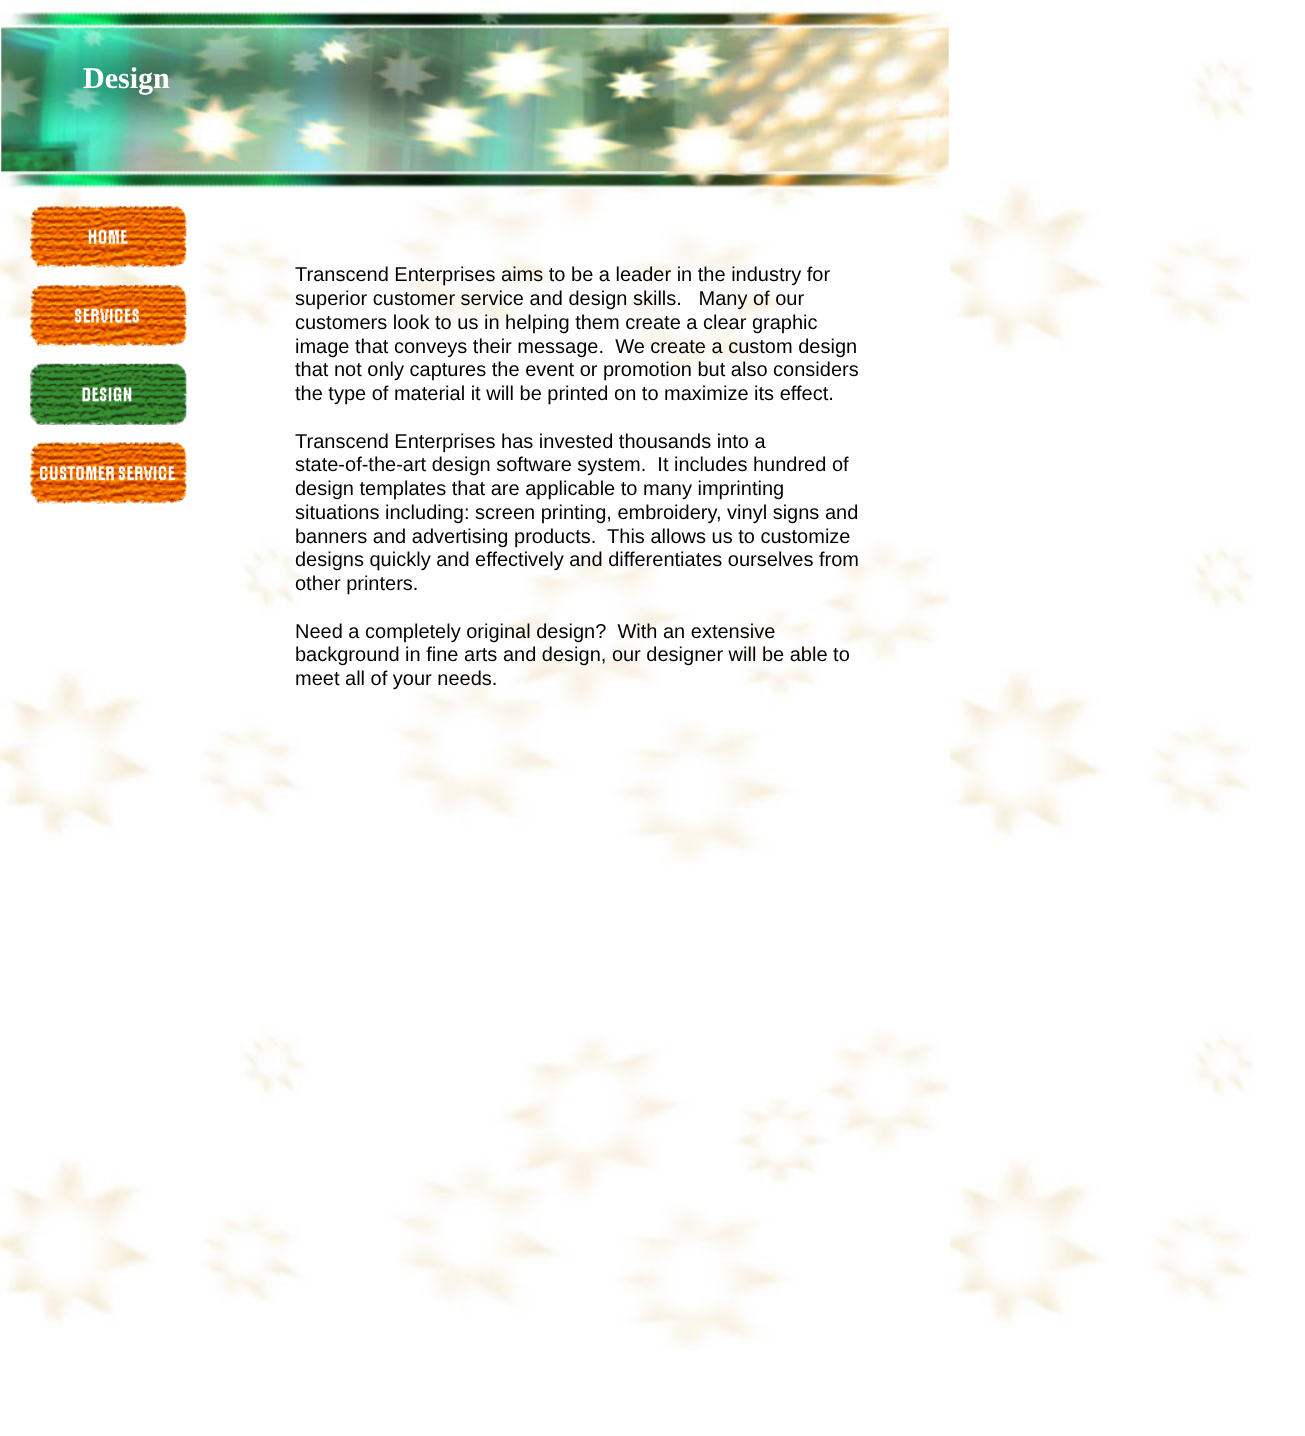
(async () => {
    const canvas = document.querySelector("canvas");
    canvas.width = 1305;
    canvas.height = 1436;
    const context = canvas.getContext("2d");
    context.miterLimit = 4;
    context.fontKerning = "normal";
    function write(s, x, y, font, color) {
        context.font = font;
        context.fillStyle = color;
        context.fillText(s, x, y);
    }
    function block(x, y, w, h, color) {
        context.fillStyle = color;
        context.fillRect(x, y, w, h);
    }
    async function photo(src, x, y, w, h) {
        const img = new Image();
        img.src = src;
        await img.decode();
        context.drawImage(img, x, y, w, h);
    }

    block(0, 0, 1305, 1436, "rgb(255, 255, 255)");
    await photo("media/1.png", 0, 54, 1253, 1296);
    await photo("media/2.png", 1, 0, 948, 189);
    write("Design", 83, 88, "bold 30px Liberation Serif", "rgb(255, 255, 255)");
    await photo("media/3.png", 29, 206, 158, 62);
    await photo("media/4.png", 29, 284, 158, 63);
    await photo("media/5.png", 29, 363, 158, 62);
    await photo("media/6.png", 29, 442, 158, 62);
    write("Transcend Enterprises aims to be a leader in the industry for", 295, 281, "20px Liberation Sans", "rgb(0, 0, 0)");
    write("superior customer service and design skills.   Many of our", 295, 305, "20px Liberation Sans", "rgb(0, 0, 0)");
    write("customers look to us in helping them create a clear graphic", 295, 329, "20px Liberation Sans", "rgb(0, 0, 0)");
    write("image that conveys their message.  We create a custom design", 295, 353, "20px Liberation Sans", "rgb(0, 0, 0)");
    write("that not only captures the event or promotion but also considers", 295, 376, "20px Liberation Sans", "rgb(0, 0, 0)");
    write("the type of material it will be printed on to maximize its effect.", 295, 400, "20px Liberation Sans", "rgb(0, 0, 0)");
    write("Transcend Enterprises has invested thousands into a", 295, 448, "20px Liberation Sans", "rgb(0, 0, 0)");
    write("state-of-the-art design software system.  It includes hundred of", 295, 471, "20px Liberation Sans", "rgb(0, 0, 0)");
    write("design templates that are applicable to many imprinting", 295, 495, "20px Liberation Sans", "rgb(0, 0, 0)");
    write("situations including: screen printing, embroidery, vinyl signs and", 295, 519, "20px Liberation Sans", "rgb(0, 0, 0)");
    write("banners and advertising products.  This allows us to customize", 295, 543, "20px Liberation Sans", "rgb(0, 0, 0)");
    write("designs quickly and effectively and differentiates ourselves from", 295, 566, "20px Liberation Sans", "rgb(0, 0, 0)");
    write("other printers.", 295, 590, "20px Liberation Sans", "rgb(0, 0, 0)");
    write("Need a completely original design?  With an extensive", 295, 638, "20px Liberation Sans", "rgb(0, 0, 0)");
    write("background in fine arts and design, our designer will be able to", 295, 661, "20px Liberation Sans", "rgb(0, 0, 0)");
    write("meet all of your needs.", 295, 685, "20px Liberation Sans", "rgb(0, 0, 0)");
})();
